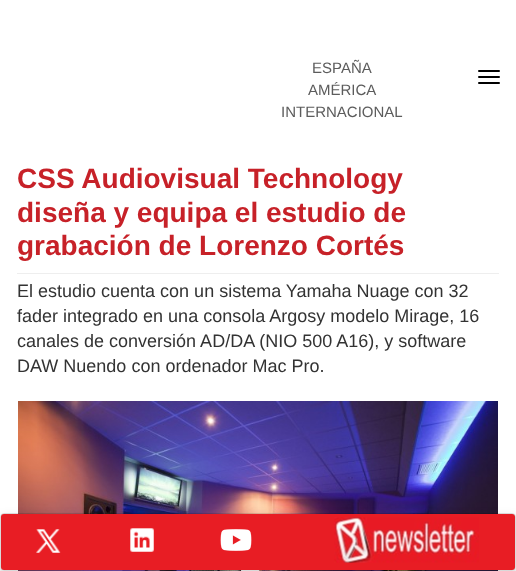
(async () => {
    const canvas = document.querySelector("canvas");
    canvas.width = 516;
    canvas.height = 571;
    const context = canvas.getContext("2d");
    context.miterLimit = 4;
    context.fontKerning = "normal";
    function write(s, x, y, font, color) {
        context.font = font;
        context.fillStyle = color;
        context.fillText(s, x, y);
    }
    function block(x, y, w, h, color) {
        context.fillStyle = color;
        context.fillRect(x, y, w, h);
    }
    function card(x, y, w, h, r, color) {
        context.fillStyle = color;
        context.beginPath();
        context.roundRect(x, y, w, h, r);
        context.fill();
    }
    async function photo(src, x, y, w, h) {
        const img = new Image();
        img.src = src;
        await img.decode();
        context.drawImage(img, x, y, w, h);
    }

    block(0, 0, 516, 571, "rgb(255, 255, 255)");
    write("ESPAÑA", 312, 73, "15px Liberation Sans", "rgb(92, 92, 92)");
    write("AMÉRICA", 308, 95, "15px Liberation Sans", "rgb(92, 92, 92)");
    write("INTERNACIONAL", 281, 117, "15px Liberation Sans", "rgb(92, 92, 92)");
    card(478, 70, 22, 2, 1, "rgb(0, 0, 0)");
    card(478, 76, 22, 2, 1, "rgb(0, 0, 0)");
    card(478, 82, 22, 2, 1, "rgb(0, 0, 0)");
    block(17, 273, 482, 1, "rgb(238, 238, 238)");
    write("CSS Audiovisual Technology", 17, 188, "bold 28px Liberation Sans", "rgb(199, 33, 40)");
    write("diseña y equipa el estudio de", 17, 222, "bold 28px Liberation Sans", "rgb(199, 33, 40)");
    write("grabación de Lorenzo Cortés", 17, 255, "bold 28px Liberation Sans", "rgb(199, 33, 40)");
    write("El estudio cuenta con un sistema Yamaha Nuage con 32", 17, 297, "18px Liberation Sans", "rgb(51, 51, 51)");
    write("fader integrado en una consola Argosy modelo Mirage, 16", 17, 322, "18px Liberation Sans", "rgb(51, 51, 51)");
    write("canales de conversión AD/DA (NIO 500 A16), y software", 17, 347, "18px Liberation Sans", "rgb(51, 51, 51)");
    write("DAW Nuendo con ordenador Mac Pro.", 17, 372, "18px Liberation Sans", "rgb(51, 51, 51)");
    await photo("media/1.png", 18, 401, 480, 170);
    context.fillStyle = "rgb(238, 238, 238)";
    context.beginPath();
    context.arc(258, 569, 2, 0, Math.PI * 2);
    context.fill();
    card(240, 567, 20, 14, 10, "rgb(255, 255, 255)");
    context.save();
    context.beginPath();
    context.moveTo(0, 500);
    context.lineTo(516, 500);
    context.lineTo(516, 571);
    context.lineTo(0, 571);
    context.closePath();
    context.moveTo(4, 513);
    context.lineTo(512, 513);
    context.bezierCurveTo(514, 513, 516, 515, 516, 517);
    context.lineTo(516, 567);
    context.bezierCurveTo(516, 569, 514, 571, 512, 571);
    context.lineTo(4, 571);
    context.bezierCurveTo(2, 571, 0, 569, 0, 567);
    context.lineTo(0, 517);
    context.bezierCurveTo(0, 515, 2, 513, 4, 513);
    context.closePath();
    context.clip("evenodd");
    context.fillStyle = "rgba(0, 0, 0, 0.18)";
    context.filter = "blur(6px)";
    context.beginPath();
    context.roundRect(0, 519, 516, 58, 4);
    context.fill();
    context.filter = "none";
    context.restore();
    card(1, 514, 514, 56, 3, "rgb(232, 29, 36)");
    context.beginPath();
    context.roundRect(0.5, 513.5, 515, 57, 3.5);
    context.strokeStyle = "rgba(0, 0, 0, 0.15)";
    context.stroke();
    await photo("media/2.png", 36, 529, 25, 24);
    await photo("media/3.png", 130, 528, 24, 24);
    await photo("media/4.png", 220, 529, 32, 22);
    await photo("media/5.png", 334, 517, 145, 46);
})();
